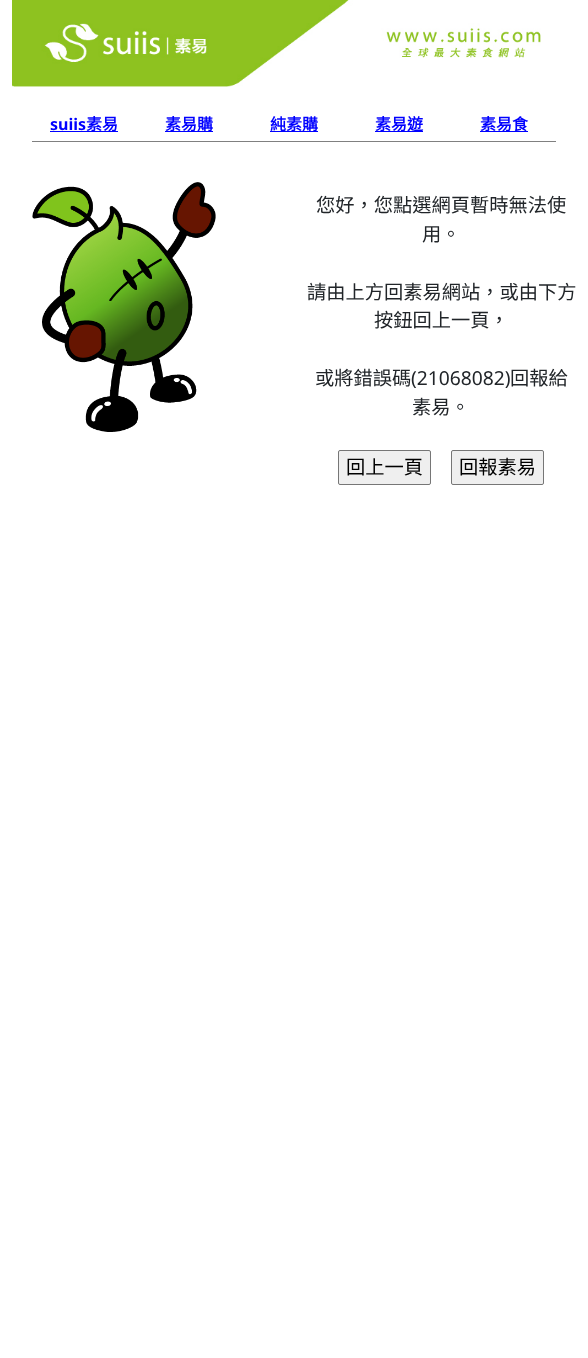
(async () => {
    const canvas = document.querySelector("canvas");
    canvas.width = 588;
    canvas.height = 1358;
    const context = canvas.getContext("2d");
    context.miterLimit = 4;
    context.fontKerning = "normal";
    function write(s, x, y, font, color) {
        context.font = font;
        context.fillStyle = color;
        context.fillText(s, x, y);
    }
    function block(x, y, w, h, color) {
        context.fillStyle = color;
        context.fillRect(x, y, w, h);
    }
    async function photo(src, x, y, w, h) {
        const img = new Image();
        img.src = src;
        await img.decode();
        context.drawImage(img, x, y, w, h);
    }

    block(0, 0, 588, 1358, "rgb(255, 255, 255)");
    await photo("media/1.png", 12, 0, 529, 87);
    block(32, 141, 524, 1, "rgb(128, 128, 128)");
    write("suiis", 50, 130, "bold 16px Noto Sans", "rgb(0, 0, 255)");
    block(50, 131, 68, 1, "rgb(0, 0, 255)");
    write("素易", 86, 130, "bold 16px Noto Sans CJK TC", "rgb(0, 0, 255)");
    block(165, 131, 48, 1, "rgb(0, 0, 255)");
    write("素易購", 165, 130, "bold 16px Noto Sans CJK TC", "rgb(0, 0, 255)");
    block(270, 131, 48, 1, "rgb(0, 0, 255)");
    write("純素購", 270, 130, "bold 16px Noto Sans CJK TC", "rgb(0, 0, 255)");
    block(375, 131, 48, 1, "rgb(0, 0, 255)");
    write("素易遊", 375, 130, "bold 16px Noto Sans CJK TC", "rgb(0, 0, 255)");
    block(480, 131, 48, 1, "rgb(0, 0, 255)");
    write("素易食", 480, 130, "bold 16px Noto Sans CJK TC", "rgb(0, 0, 255)");
    await photo("media/2.png", 32, 182, 184, 250);
    write("您好，您點選網頁暫時無法使", 316, 212, "19.25px Noto Sans CJK TC", "rgb(33, 37, 41)");
    write("用。", 422, 241, "19.25px Noto Sans CJK TC", "rgb(33, 37, 41)");
    write("請由上方回素易網站，或由下方", 307, 299, "19.25px Noto Sans CJK TC", "rgb(33, 37, 41)");
    write("按鈕回上一頁，", 374, 327, "19.25px Noto Sans CJK TC", "rgb(33, 37, 41)");
    write("或將錯誤碼", 315, 385, "19.25px Noto Sans CJK TC", "rgb(33, 37, 41)");
    write("(21068082)", 411, 385, "19.25px Noto Sans", "rgb(33, 37, 41)");
    write("回報給", 510, 385, "19.25px Noto Sans CJK TC", "rgb(33, 37, 41)");
    write("素易。", 412, 414, "19.25px Noto Sans CJK TC", "rgb(33, 37, 41)");
    context.fillStyle = "rgb(239, 239, 239)";
    context.beginPath();
    context.roundRect(338.5, 450.5, 92, 34, 1.5);
    context.fill();
    context.strokeStyle = "rgb(118, 118, 118)";
    context.stroke();
    write("回上一頁", 346, 474, "19.25px Noto Sans CJK TC", "rgb(0, 0, 0)");
    context.fillStyle = "rgb(239, 239, 239)";
    context.beginPath();
    context.roundRect(451.5, 450.5, 92, 34, 1.5);
    context.fill();
    context.stroke();
    write("回報素易", 459, 474, "19.25px Noto Sans CJK TC", "rgb(0, 0, 0)");
})();
